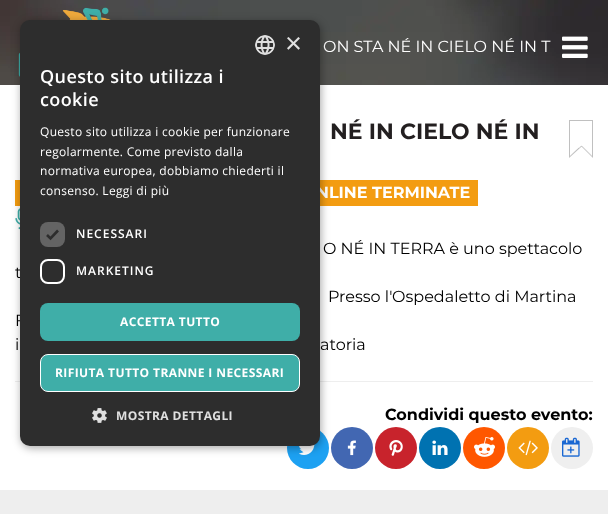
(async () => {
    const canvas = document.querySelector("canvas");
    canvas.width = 608;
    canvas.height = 514;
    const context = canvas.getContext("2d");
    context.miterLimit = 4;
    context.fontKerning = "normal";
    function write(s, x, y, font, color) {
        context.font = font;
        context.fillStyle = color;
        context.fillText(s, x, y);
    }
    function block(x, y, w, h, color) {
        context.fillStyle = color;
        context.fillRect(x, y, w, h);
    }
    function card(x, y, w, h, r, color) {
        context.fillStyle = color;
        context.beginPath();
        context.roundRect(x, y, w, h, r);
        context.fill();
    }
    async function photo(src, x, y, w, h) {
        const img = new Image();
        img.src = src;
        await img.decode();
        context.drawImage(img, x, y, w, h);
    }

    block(0, 0, 608, 514, "rgb(255, 255, 255)");
    await photo("media/1.png", 0, 0, 608, 85);
    await photo("media/2.png", 18, 7, 93, 70);
    write("ON STA NÉ IN CIELO NÉ IN T", 323, 52, "16px Montserrat", "rgb(255, 255, 255)");
    await photo("media/3.png", 562, 36, 26, 22);
    write("NÉ IN CIELO NÉ IN", 330, 139, "bold 22px Montserrat", "rgb(35, 31, 32)");
    await photo("media/4.png", 569, 120, 24, 38);
    block(15, 180, 5, 26, "rgb(243, 156, 17)");
    block(320, 180, 158, 26, "rgb(243, 156, 17)");
    write("NLINE TERMINATE", 316, 198, "bold 16px Montserrat", "rgb(255, 255, 255)");
    await photo("media/5.png", 15, 208, 5, 22);
    write("O NÉ IN TERRA è uno spettacolo", 323, 254, "16px Montserrat", "rgb(0, 0, 0)");
    write("t", 15, 278, "16px Montserrat", "rgb(0, 0, 0)");
    write("Presso l'Ospedaletto di Martina", 328, 302, "16px Montserrat", "rgb(0, 0, 0)");
    write("F", 15, 326, "16px Montserrat", "rgb(0, 0, 0)");
    write("i", 15, 350, "16px Montserrat", "rgb(0, 0, 0)");
    write("atoria", 320, 350, "16px Montserrat", "rgb(0, 0, 0)");
    block(15, 381, 578, 1, "rgb(238, 238, 238)");
    write("Condividi questo evento:", 385, 420, "bold 16px Montserrat", "rgb(0, 0, 0)");
    context.fillStyle = "rgb(29, 161, 242)";
    context.beginPath();
    context.arc(308, 448, 21, 0, Math.PI * 2);
    context.fill();
    await photo("media/6.png", 299, 444, 16, 11);
    context.fillStyle = "rgb(66, 103, 178)";
    context.beginPath();
    context.arc(352, 448, 21, 0, Math.PI * 2);
    context.fill();
    await photo("media/7.png", 347, 440, 9, 16);
    context.fillStyle = "rgb(200, 35, 44)";
    context.beginPath();
    context.arc(396, 448, 21, 0, Math.PI * 2);
    context.fill();
    await photo("media/8.png", 389, 440, 14, 16);
    context.fillStyle = "rgb(0, 114, 177)";
    context.beginPath();
    context.arc(440, 448, 21, 0, Math.PI * 2);
    context.fill();
    await photo("media/9.png", 432, 440, 16, 15);
    context.fillStyle = "rgb(255, 87, 0)";
    context.beginPath();
    context.arc(484, 448, 21, 0, Math.PI * 2);
    context.fill();
    await photo("media/10.png", 474, 437, 21, 20);
    context.fillStyle = "rgb(243, 156, 17)";
    context.beginPath();
    context.arc(528, 448, 21, 0, Math.PI * 2);
    context.fill();
    await photo("media/11.png", 518, 440, 20, 16);
    context.fillStyle = "rgb(239, 239, 239)";
    context.beginPath();
    context.arc(572, 448, 21, 0, Math.PI * 2);
    context.fill();
    await photo("media/12.png", 562, 437, 18, 20);
    block(0, 490, 608, 24, "rgb(238, 238, 238)");
    context.fillStyle = "rgba(0, 0, 0, 0.35)";
    context.filter = "blur(4px)";
    context.beginPath();
    context.roundRect(21, 22, 300, 426, 10);
    context.fill();
    context.filter = "none";
    card(20, 20, 300, 426, 10, "rgb(45, 45, 45)");
    await photo("media/13.png", 255, 35, 20, 20);
    write("×", 285, 53, "29px Liberation Sans", "rgb(224, 224, 224)");
    context.letterSpacing = "0.4px";
    write("Questo sito utilizza i", 40, 83, "600 18px Open Sans", "rgb(255, 255, 255)");
    write("cookie", 40, 106, "600 18px Open Sans", "rgb(255, 255, 255)");
    context.letterSpacing = "0.3px";
    write("Questo sito utilizza i cookie per funzionare", 40, 136, "12px Open Sans", "rgb(255, 255, 255)");
    write("regolarmente. Come previsto dalla", 40, 156, "12px Open Sans", "rgb(255, 255, 255)");
    write("normativa europea, dobbiamo chiederti il", 40, 175, "12px Open Sans", "rgb(255, 255, 255)");
    write("consenso. Leggi di più", 40, 195, "12px Open Sans", "rgb(255, 255, 255)");
    card(40, 222, 25, 25, 8, "rgb(100, 100, 100)");
    context.beginPath();
    context.moveTo(47, 235);
    context.lineTo(50.5, 238.5);
    context.lineTo(58, 230.5);
    context.strokeStyle = "rgb(45, 45, 45)";
    context.lineWidth = 2.6;
    context.stroke();
    context.letterSpacing = "1px";
    write("NECESSARI", 76, 238, "600 12px Open Sans", "rgb(255, 255, 255)");
    context.beginPath();
    context.roundRect(41, 260, 23, 23, 7);
    context.strokeStyle = "rgb(255, 255, 255)";
    context.lineWidth = 2;
    context.stroke();
    write("MARKETING", 76, 275, "600 12px Open Sans", "rgb(255, 255, 255)");
    card(40, 303, 260, 38, 8, "rgb(63, 174, 168)");
    context.letterSpacing = "0.4px";
    write("ACCETTA TUTTO", 120, 326, "bold 12px Open Sans", "rgb(255, 255, 255)");
    context.fillStyle = "rgb(63, 174, 168)";
    context.beginPath();
    context.roundRect(40.5, 354.5, 259, 37, 7.5);
    context.fill();
    context.lineWidth = 1;
    context.stroke();
    write("RIFIUTA TUTTO TRANNE I NECESSARI", 55, 377, "bold 12px Open Sans", "rgb(255, 255, 255)");
    await photo("media/14.png", 92, 408, 15, 15);
    write("MOSTRA DETTAGLI", 116, 420, "bold 12px Open Sans", "rgb(224, 224, 224)");
})();
